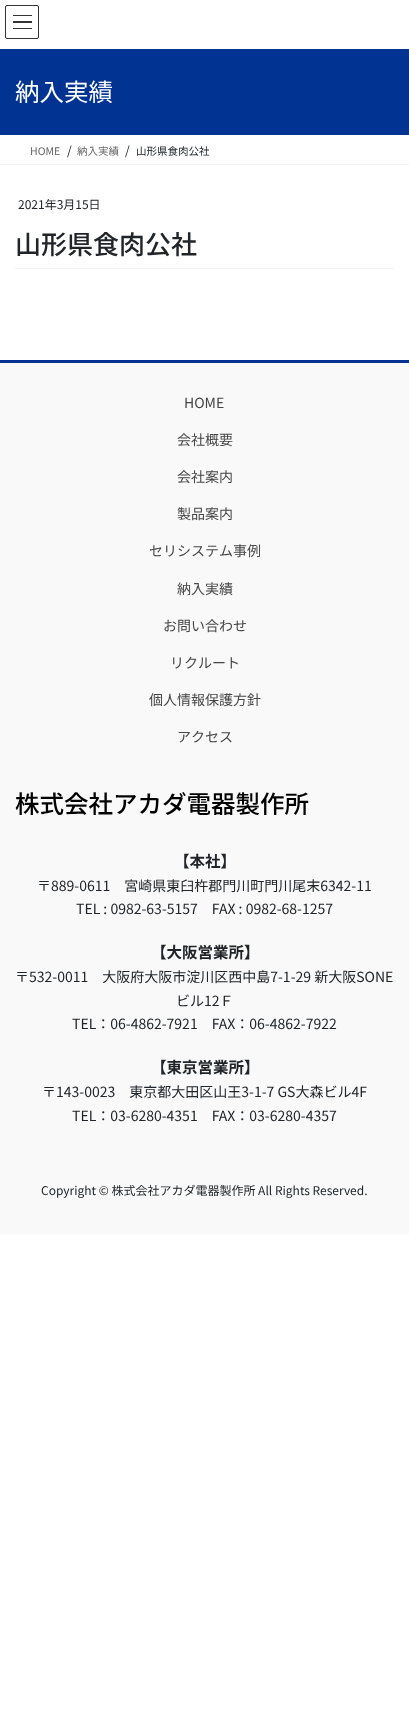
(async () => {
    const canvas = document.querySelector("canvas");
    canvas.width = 409;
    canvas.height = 1734;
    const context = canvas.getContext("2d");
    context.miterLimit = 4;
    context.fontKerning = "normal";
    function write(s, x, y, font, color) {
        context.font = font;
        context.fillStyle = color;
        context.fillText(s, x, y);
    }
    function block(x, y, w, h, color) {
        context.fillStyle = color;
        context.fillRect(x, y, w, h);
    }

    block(0, 0, 409, 1734, "rgb(255, 255, 255)");
    block(13, 15, 19, 1, "rgb(51, 51, 51)");
    block(13, 21, 19, 2, "rgb(51, 51, 51)");
    block(13, 28, 19, 1, "rgb(51, 51, 51)");
    context.beginPath();
    context.roundRect(5.5, 5.5, 33, 33, 1.5);
    context.strokeStyle = "rgb(51, 51, 51)";
    context.stroke();
    block(0, 49, 409, 86, "rgb(0, 51, 146)");
    write("納入実績", 15, 101, "24.5px Noto Sans JP", "rgb(255, 255, 255)");
    block(0, 164, 409, 1, "rgb(242, 242, 242)");
    write("HOME", 30, 155, "10.5px Noto Sans JP", "rgb(102, 102, 102)");
    write("/", 67, 155, "12px Noto Sans JP", "rgb(33, 37, 41)");
    write("納入実績", 77, 155, "10.5px Noto Sans JP", "rgb(102, 102, 102)");
    write("/", 125, 155, "12px Noto Sans JP", "rgb(33, 37, 41)");
    write("山形県食肉公社", 136, 155, "10.5px Noto Sans JP", "rgb(33, 37, 41)");
    block(15, 268, 379, 1, "rgb(242, 242, 242)");
    write("2021年3月15日", 18, 209, "12px Noto Sans JP", "rgb(33, 37, 41)");
    write("山形県食肉公社", 15, 254, "500 26px Noto Sans JP", "rgb(33, 37, 41)");
    block(0, 363, 409, 871, "rgb(249, 249, 249)");
    block(0, 360, 409, 3, "rgb(0, 51, 146)");
    write("HOME", 184, 408, "14px Noto Sans JP", "rgb(70, 70, 70)");
    write("会社概要", 177, 445, "14px Noto Sans JP", "rgb(70, 70, 70)");
    write("会社案内", 177, 482, "14px Noto Sans JP", "rgb(70, 70, 70)");
    write("製品案内", 177, 519, "14px Noto Sans JP", "rgb(70, 70, 70)");
    write("セリシステム事例", 149, 556, "14px Noto Sans JP", "rgb(70, 70, 70)");
    write("納入実績", 177, 594, "14px Noto Sans JP", "rgb(70, 70, 70)");
    write("お問い合わせ", 163, 631, "14px Noto Sans JP", "rgb(70, 70, 70)");
    write("リクルート", 170, 668, "14px Noto Sans JP", "rgb(70, 70, 70)");
    write("個人情報保護方針", 149, 705, "14px Noto Sans JP", "rgb(70, 70, 70)");
    write("アクセス", 177, 742, "14px Noto Sans JP", "rgb(70, 70, 70)");
    write("株式会社アカダ電器製作所", 15, 813, "500 24.5px Noto Sans JP", "rgb(0, 0, 0)");
    write("【本社】", 174, 867, "bold 15.5px Noto Sans JP", "rgb(33, 37, 41)");
    write("〒889-0611　宮崎県東臼杵郡門川町門川尾末6342-11", 37, 891, "14px Noto Sans JP", "rgb(33, 37, 41)");
    write("TEL : 0982-63-5157　FAX : 0982-68-1257", 76, 914, "14px Noto Sans JP", "rgb(33, 37, 41)");
    write("【大阪営業所】", 151, 958, "bold 15.5px Noto Sans JP", "rgb(33, 37, 41)");
    write("〒532-0011　大阪府大阪市淀川区西中島7-1-29 新大阪SONE", 15, 982, "14px Noto Sans JP", "rgb(33, 37, 41)");
    write("ビル12Ｆ", 176, 1006, "14px Noto Sans JP", "rgb(33, 37, 41)");
    write("TEL：06-4862-7921　FAX：06-4862-7922", 72, 1029, "14px Noto Sans JP", "rgb(33, 37, 41)");
    write("【東京営業所】", 151, 1073, "bold 15.5px Noto Sans JP", "rgb(33, 37, 41)");
    write("〒143-0023　東京都大田区山王3-1-7 GS大森ビル4F", 42, 1097, "14px Noto Sans JP", "rgb(33, 37, 41)");
    write("TEL：03-6280-4351　FAX：03-6280-4357", 72, 1121, "14px Noto Sans JP", "rgb(33, 37, 41)");
    write("Copyright © 株式会社アカダ電器製作所 All Rights Reserved.", 41, 1195, "12px Noto Sans JP", "rgb(33, 37, 41)");
})();
